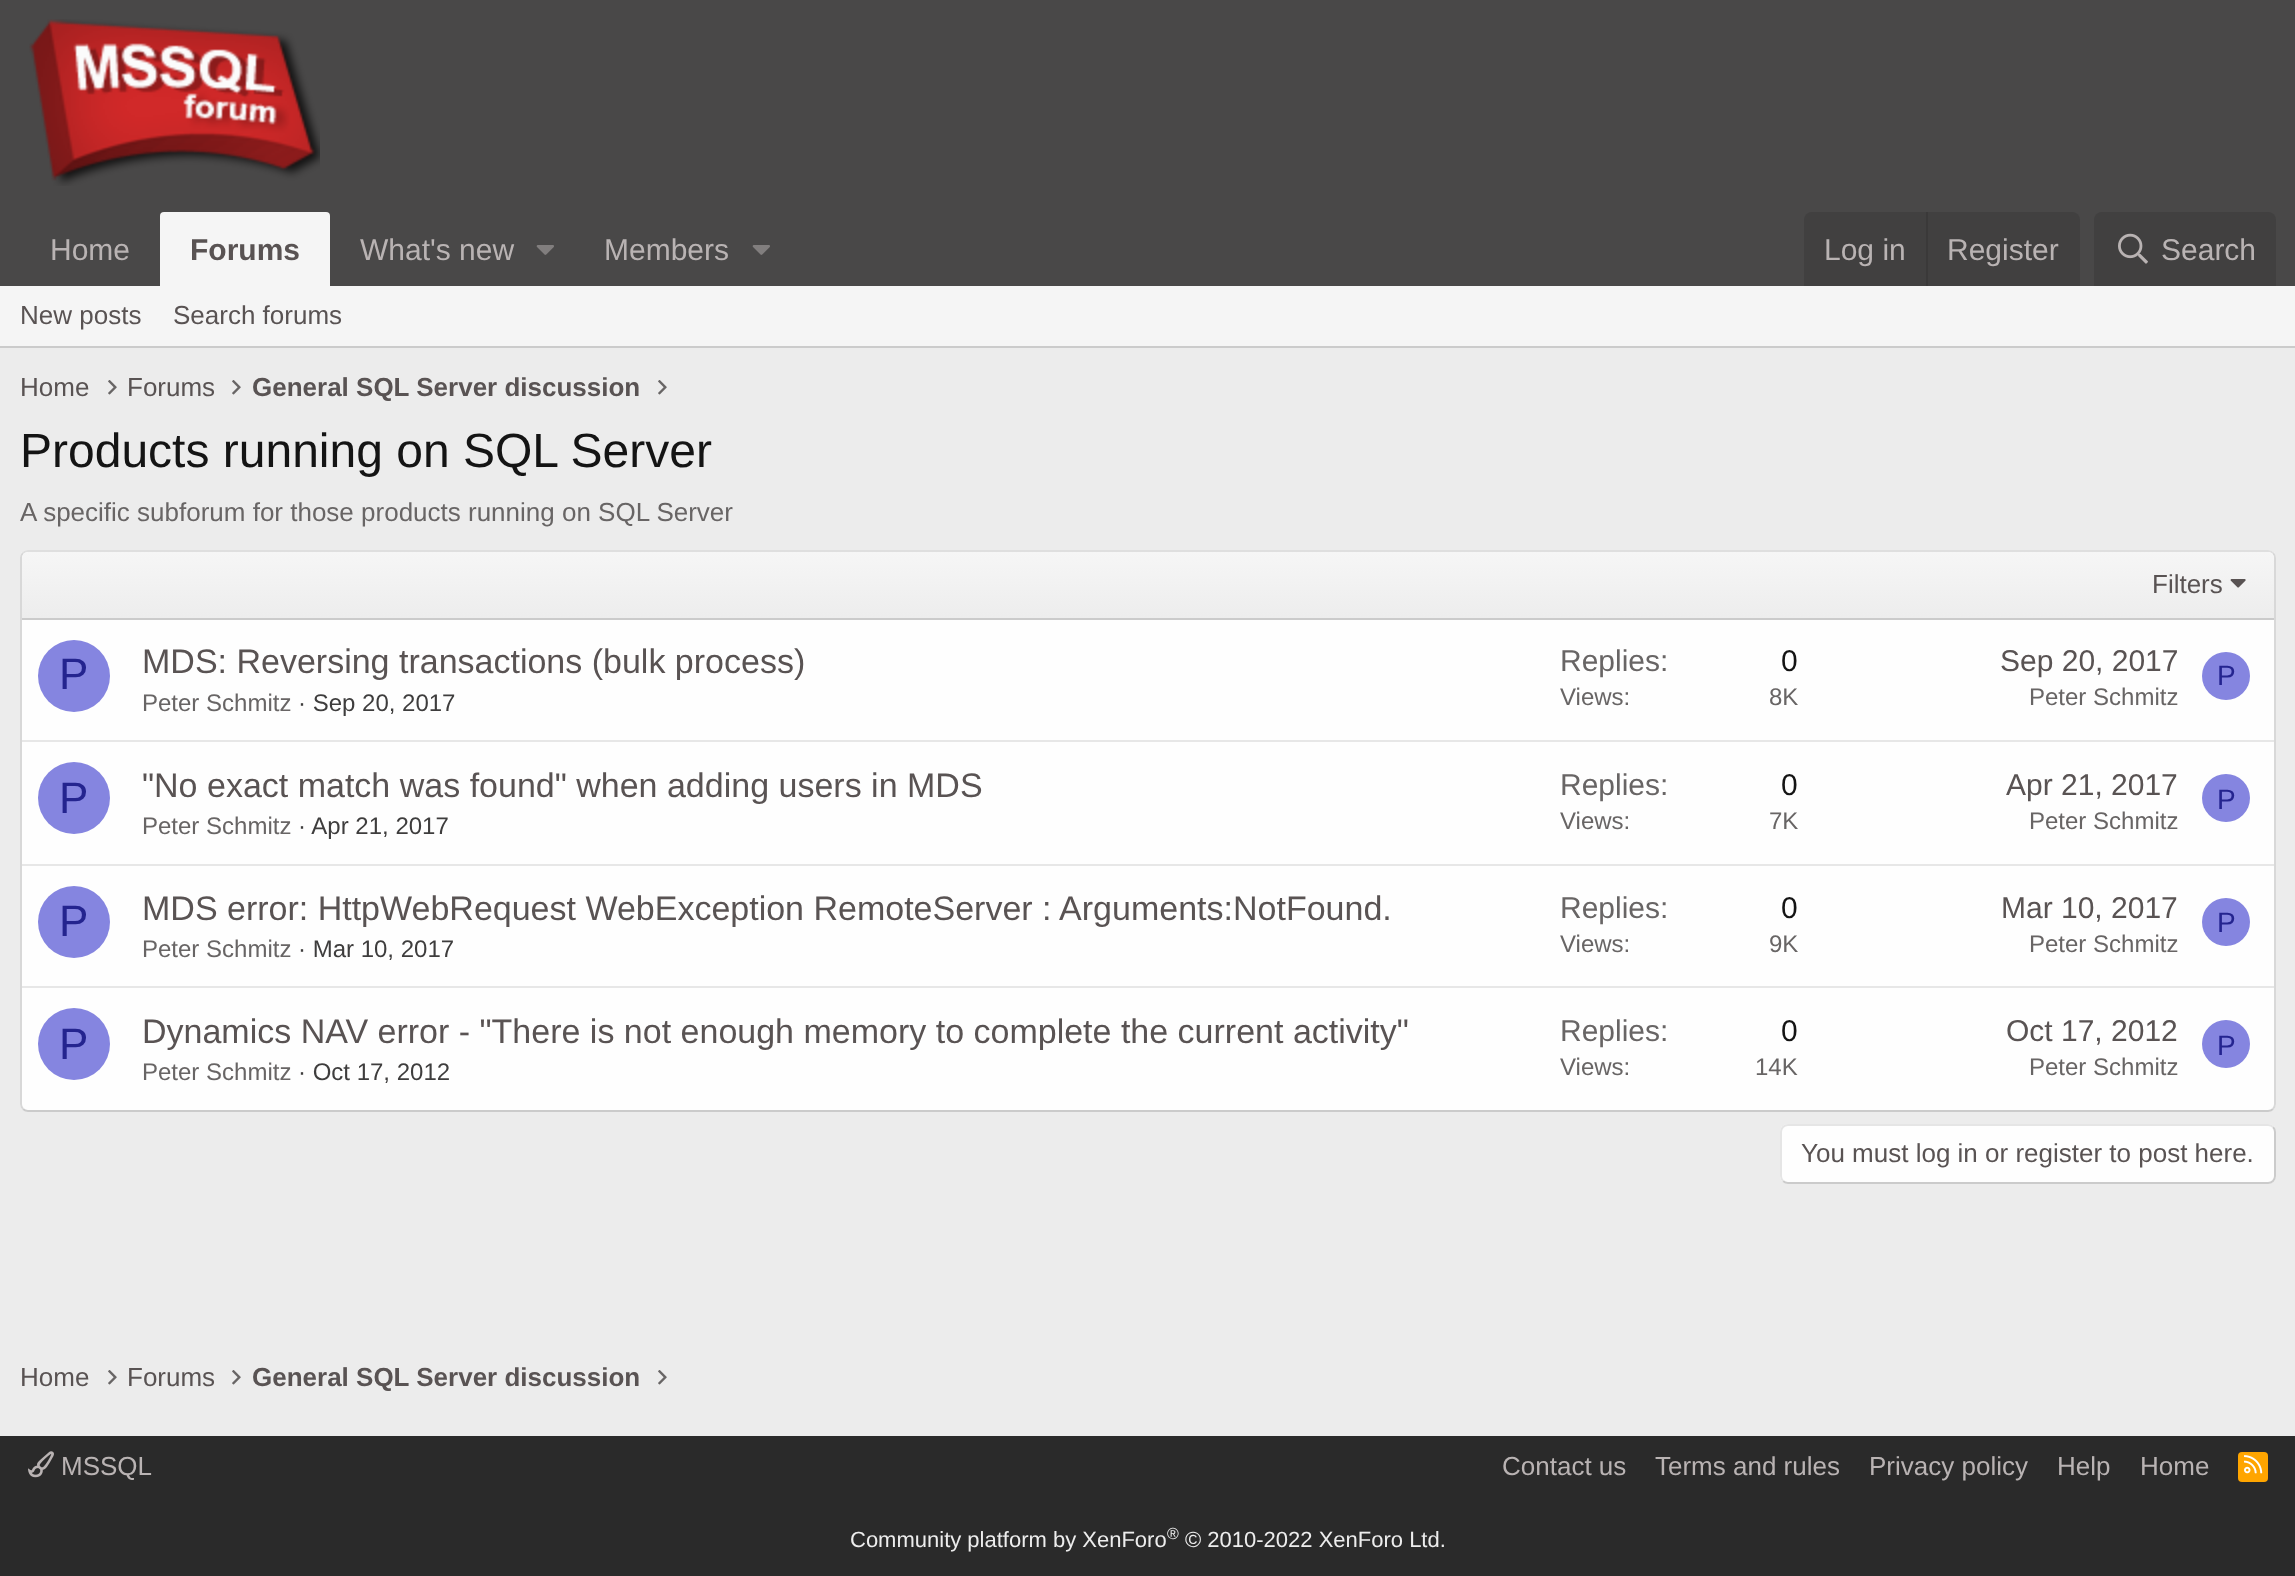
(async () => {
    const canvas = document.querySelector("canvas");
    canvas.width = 2295;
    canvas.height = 1576;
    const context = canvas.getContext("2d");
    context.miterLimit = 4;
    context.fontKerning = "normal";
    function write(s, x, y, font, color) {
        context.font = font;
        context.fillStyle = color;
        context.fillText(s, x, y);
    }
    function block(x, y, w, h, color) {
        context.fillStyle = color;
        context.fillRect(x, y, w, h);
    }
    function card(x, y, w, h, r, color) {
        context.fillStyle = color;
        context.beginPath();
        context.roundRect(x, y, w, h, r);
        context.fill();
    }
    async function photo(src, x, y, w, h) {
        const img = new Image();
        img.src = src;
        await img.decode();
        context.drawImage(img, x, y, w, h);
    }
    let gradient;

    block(0, 0, 2295, 1576, "rgb(236, 236, 236)");
    block(0, 0, 2295, 286, "rgb(73, 72, 72)");
    await photo("media/1.png", 29, 19, 291, 167);
    write("Home", 50, 260, "30px Liberation Sans", "rgb(185, 179, 179)");
    context.fillStyle = "rgb(245, 245, 245)";
    context.beginPath();
    context.roundRect(160, 212, 170, 74, [4, 4, 0, 0]);
    context.fill();
    write("Forums", 190, 260, "bold 30px Liberation Sans", "rgb(89, 83, 83)");
    write("What's new", 360, 260, "30px Liberation Sans", "rgb(185, 179, 179)");
    await photo("media/2.png", 536, 245, 18, 10);
    write("Members", 604, 260, "30px Liberation Sans", "rgb(185, 179, 179)");
    await photo("media/2.png", 752, 245, 18, 10);
    context.fillStyle = "rgb(65, 64, 64)";
    context.beginPath();
    context.roundRect(1804, 212, 276, 74, [8, 8, 0, 0]);
    context.fill();
    write("Log in", 1824, 260, "30px Liberation Sans", "rgb(185, 179, 179)");
    block(1926, 212, 2, 74, "rgb(58, 57, 57)");
    write("Register", 1947, 260, "30px Liberation Sans", "rgb(185, 179, 179)");
    context.fillStyle = "rgb(65, 64, 64)";
    context.beginPath();
    context.roundRect(2094, 212, 182, 74, [8, 8, 0, 0]);
    context.fill();
    await photo("media/3.png", 2118, 233, 30, 31);
    write("Search", 2161, 260, "30px Liberation Sans", "rgb(185, 179, 179)");
    block(0, 286, 2295, 60, "rgb(245, 245, 245)");
    block(0, 346, 2295, 2, "rgb(203, 203, 203)");
    write("New posts", 20, 324, "26px Liberation Sans", "rgb(89, 83, 83)");
    write("Search forums", 173, 324, "26px Liberation Sans", "rgb(89, 83, 83)");
    write("Home", 20, 396, "26px Liberation Sans", "rgb(89, 83, 83)");
    await photo("media/4.png", 108, 380, 9, 15);
    write("Forums", 127, 396, "26px Liberation Sans", "rgb(89, 83, 83)");
    await photo("media/4.png", 232, 380, 9, 15);
    write("General SQL Server discussion", 252, 396, "bold 26px Liberation Sans", "rgb(89, 83, 83)");
    await photo("media/4.png", 658, 380, 9, 15);
    write("Products running on SQL Server", 20, 467, "48px Liberation Sans", "rgb(20, 20, 20)");
    write("A specific subforum for those products running on SQL Server", 20, 521, "26px Liberation Sans", "rgb(104, 101, 101)");
    card(20, 550, 2256, 562, 8, "rgb(254, 254, 254)");
    context.beginPath();
    context.moveTo(23, 553);
    context.bezierCurveTo(24.5, 551.5, 26, 551, 28, 551);
    context.lineTo(2268, 551);
    context.bezierCurveTo(2270, 551, 2271.5, 551.5, 2273, 553);
    context.strokeStyle = "rgb(223, 223, 223)";
    context.lineWidth = 2;
    context.stroke();
    context.beginPath();
    context.moveTo(2273, 553);
    context.bezierCurveTo(2274.5, 554.5, 2275, 556, 2275, 558);
    context.lineTo(2275, 1104);
    context.bezierCurveTo(2275, 1106, 2274.5, 1107.5, 2273, 1109);
    context.strokeStyle = "rgb(216, 216, 216)";
    context.stroke();
    context.beginPath();
    context.moveTo(2273, 1109);
    context.bezierCurveTo(2271.5, 1110.5, 2270, 1111, 2268, 1111);
    context.lineTo(28, 1111);
    context.bezierCurveTo(26, 1111, 24.5, 1110.5, 23, 1109);
    context.strokeStyle = "rgb(203, 203, 203)";
    context.stroke();
    context.beginPath();
    context.moveTo(23, 1109);
    context.bezierCurveTo(21.5, 1107.5, 21, 1106, 21, 1104);
    context.lineTo(21, 558);
    context.bezierCurveTo(21, 556, 21.5, 554.5, 23, 553);
    context.strokeStyle = "rgb(216, 216, 216)";
    context.stroke();
    gradient = context.createLinearGradient(1148, 618, 1148, 552);
    gradient.addColorStop(0, "rgb(237, 237, 237)");
    gradient.addColorStop(1, "rgb(246, 246, 246)");
    context.fillStyle = gradient;
    context.beginPath();
    context.roundRect(22, 552, 2252, 66, [6, 6, 0, 0]);
    context.fill();
    block(22, 618, 2252, 2, "rgb(203, 203, 203)");
    write("Filters", 2152, 593, "26px Liberation Sans", "rgb(89, 83, 83)");
    await photo("media/5.png", 2230, 579, 16, 9);
    context.fillStyle = "rgb(133, 133, 224)";
    context.beginPath();
    context.arc(74, 676, 36, 0, Math.PI * 2);
    context.fill();
    write("P", 59, 689, "44px Liberation Sans", "rgb(36, 36, 143)");
    write("MDS: Reversing transactions (bulk process)", 142, 673, "34px Liberation Sans", "rgb(89, 83, 83)");
    write("Peter Schmitz", 142, 711, "24px Liberation Sans", "rgb(104, 101, 101)");
    write("· Sep 20, 2017", 298, 711, "24px Liberation Sans", "rgb(62, 61, 61)");
    write("Replies:", 1560, 671, "30px Liberation Sans", "rgb(104, 101, 101)");
    write("0", 1781, 671, "30px Liberation Sans", "rgb(20, 20, 20)");
    write("Views:", 1560, 705, "24px Liberation Sans", "rgb(104, 101, 101)");
    write("8K", 1769, 705, "24px Liberation Sans", "rgb(104, 101, 101)");
    write("Sep 20, 2017", 2000, 671, "30px Liberation Sans", "rgb(89, 83, 83)");
    write("Peter Schmitz", 2029, 705, "24px Liberation Sans", "rgb(104, 101, 101)");
    context.fillStyle = "rgb(133, 133, 224)";
    context.beginPath();
    context.arc(2226, 676, 24, 0, Math.PI * 2);
    context.fill();
    write("P", 2217, 685, "28px Liberation Sans", "rgb(36, 36, 143)");
    block(22, 740, 2252, 2, "rgb(231, 231, 231)");
    context.fillStyle = "rgb(133, 133, 224)";
    context.beginPath();
    context.arc(74, 798, 36, 0, Math.PI * 2);
    context.fill();
    write("P", 59, 813, "44px Liberation Sans", "rgb(36, 36, 143)");
    write("\"No exact match was found\" when adding users in MDS", 142, 797, "34px Liberation Sans", "rgb(89, 83, 83)");
    write("Peter Schmitz", 142, 834, "24px Liberation Sans", "rgb(104, 101, 101)");
    write("· Apr 21, 2017", 298, 834, "24px Liberation Sans", "rgb(62, 61, 61)");
    write("Replies:", 1560, 795, "30px Liberation Sans", "rgb(104, 101, 101)");
    write("0", 1781, 795, "30px Liberation Sans", "rgb(20, 20, 20)");
    write("Views:", 1560, 829, "24px Liberation Sans", "rgb(104, 101, 101)");
    write("7K", 1769, 829, "24px Liberation Sans", "rgb(104, 101, 101)");
    write("Apr 21, 2017", 2006, 795, "30px Liberation Sans", "rgb(89, 83, 83)");
    write("Peter Schmitz", 2029, 829, "24px Liberation Sans", "rgb(104, 101, 101)");
    context.fillStyle = "rgb(133, 133, 224)";
    context.beginPath();
    context.arc(2226, 798, 24, 0, Math.PI * 2);
    context.fill();
    write("P", 2217, 809, "28px Liberation Sans", "rgb(36, 36, 143)");
    block(22, 864, 2252, 2, "rgb(231, 231, 231)");
    context.fillStyle = "rgb(133, 133, 224)";
    context.beginPath();
    context.arc(74, 922, 36, 0, Math.PI * 2);
    context.fill();
    write("P", 59, 936, "44px Liberation Sans", "rgb(36, 36, 143)");
    write("MDS error: HttpWebRequest WebException RemoteServer : Arguments:NotFound.", 142, 920, "34px Liberation Sans", "rgb(89, 83, 83)");
    write("Peter Schmitz", 142, 957, "24px Liberation Sans", "rgb(104, 101, 101)");
    write("· Mar 10, 2017", 298, 957, "24px Liberation Sans", "rgb(62, 61, 61)");
    write("Replies:", 1560, 918, "30px Liberation Sans", "rgb(104, 101, 101)");
    write("0", 1781, 918, "30px Liberation Sans", "rgb(20, 20, 20)");
    write("Views:", 1560, 952, "24px Liberation Sans", "rgb(104, 101, 101)");
    write("9K", 1769, 952, "24px Liberation Sans", "rgb(104, 101, 101)");
    write("Mar 10, 2017", 2001, 918, "30px Liberation Sans", "rgb(89, 83, 83)");
    write("Peter Schmitz", 2029, 952, "24px Liberation Sans", "rgb(104, 101, 101)");
    context.fillStyle = "rgb(133, 133, 224)";
    context.beginPath();
    context.arc(2226, 922, 24, 0, Math.PI * 2);
    context.fill();
    write("P", 2217, 932, "28px Liberation Sans", "rgb(36, 36, 143)");
    block(22, 986, 2252, 2, "rgb(231, 231, 231)");
    context.fillStyle = "rgb(133, 133, 224)";
    context.beginPath();
    context.arc(74, 1044, 36, 0, Math.PI * 2);
    context.fill();
    write("P", 59, 1059, "44px Liberation Sans", "rgb(36, 36, 143)");
    write("Dynamics NAV error - \"There is not enough memory to complete the current activity\"", 142, 1043, "34px Liberation Sans", "rgb(89, 83, 83)");
    write("Peter Schmitz", 142, 1080, "24px Liberation Sans", "rgb(104, 101, 101)");
    write("· Oct 17, 2012", 298, 1080, "24px Liberation Sans", "rgb(62, 61, 61)");
    write("Replies:", 1560, 1041, "30px Liberation Sans", "rgb(104, 101, 101)");
    write("0", 1781, 1041, "30px Liberation Sans", "rgb(20, 20, 20)");
    write("Views:", 1560, 1075, "24px Liberation Sans", "rgb(104, 101, 101)");
    write("14K", 1755, 1075, "24px Liberation Sans", "rgb(104, 101, 101)");
    write("Oct 17, 2012", 2006, 1041, "30px Liberation Sans", "rgb(89, 83, 83)");
    write("Peter Schmitz", 2029, 1075, "24px Liberation Sans", "rgb(104, 101, 101)");
    context.fillStyle = "rgb(133, 133, 224)";
    context.beginPath();
    context.arc(2226, 1044, 24, 0, Math.PI * 2);
    context.fill();
    write("P", 2217, 1055, "28px Liberation Sans", "rgb(36, 36, 143)");
    card(1780, 1124, 496, 60, 8, "rgb(254, 254, 254)");
    context.beginPath();
    context.moveTo(2273, 1127);
    context.bezierCurveTo(2274.5, 1128.5, 2275, 1130, 2275, 1132);
    context.lineTo(2275, 1176);
    context.bezierCurveTo(2275, 1178, 2274.5, 1179.5, 2273, 1181);
    context.bezierCurveTo(2271.5, 1182.5, 2270, 1183, 2268, 1183);
    context.lineTo(1788, 1183);
    context.bezierCurveTo(1786, 1183, 1784.5, 1182.5, 1783, 1181);
    context.strokeStyle = "rgb(203, 203, 203)";
    context.stroke();
    context.beginPath();
    context.moveTo(1783, 1181);
    context.bezierCurveTo(1781.5, 1179.5, 1781, 1178, 1781, 1176);
    context.lineTo(1781, 1132);
    context.bezierCurveTo(1781, 1130, 1781.5, 1128.5, 1783, 1127);
    context.bezierCurveTo(1784.5, 1125.5, 1786, 1125, 1788, 1125);
    context.lineTo(2268, 1125);
    context.bezierCurveTo(2270, 1125, 2271.5, 1125.5, 2273, 1127);
    context.strokeStyle = "rgb(229, 229, 229)";
    context.stroke();
    write("You must log in or register to post here.", 1801, 1162, "26px Liberation Sans", "rgb(89, 83, 83)");
    write("Home", 20, 1386, "26px Liberation Sans", "rgb(89, 83, 83)");
    await photo("media/4.png", 108, 1370, 9, 15);
    write("Forums", 127, 1386, "26px Liberation Sans", "rgb(89, 83, 83)");
    await photo("media/4.png", 232, 1370, 9, 15);
    write("General SQL Server discussion", 252, 1386, "bold 26px Liberation Sans", "rgb(89, 83, 83)");
    await photo("media/4.png", 658, 1370, 9, 15);
    block(0, 1436, 2295, 140, "rgb(42, 42, 42)");
    await photo("media/6.png", 28, 1451, 26, 27);
    write("MSSQL", 61, 1475, "26px Liberation Sans", "rgb(185, 179, 179)");
    write("Contact us", 1502, 1475, "26px Liberation Sans", "rgb(185, 179, 179)");
    write("Terms and rules", 1655, 1475, "26px Liberation Sans", "rgb(185, 179, 179)");
    write("Privacy policy", 1869, 1475, "26px Liberation Sans", "rgb(185, 179, 179)");
    write("Help", 2057, 1475, "26px Liberation Sans", "rgb(185, 179, 179)");
    write("Home", 2140, 1475, "26px Liberation Sans", "rgb(185, 179, 179)");
    card(2238, 1452, 30, 30, 4, "rgb(255, 165, 0)");
    await photo("media/7.png", 2244, 1455, 19, 19);
    write("Community platform by XenForo", 850, 1547, "22px Liberation Sans", "rgb(237, 237, 237)");
    write("®", 1167, 1539, "16px Liberation Sans", "rgb(237, 237, 237)");
    write("© 2010-2022 XenForo Ltd.", 1185, 1547, "22px Liberation Sans", "rgb(237, 237, 237)");
})();
